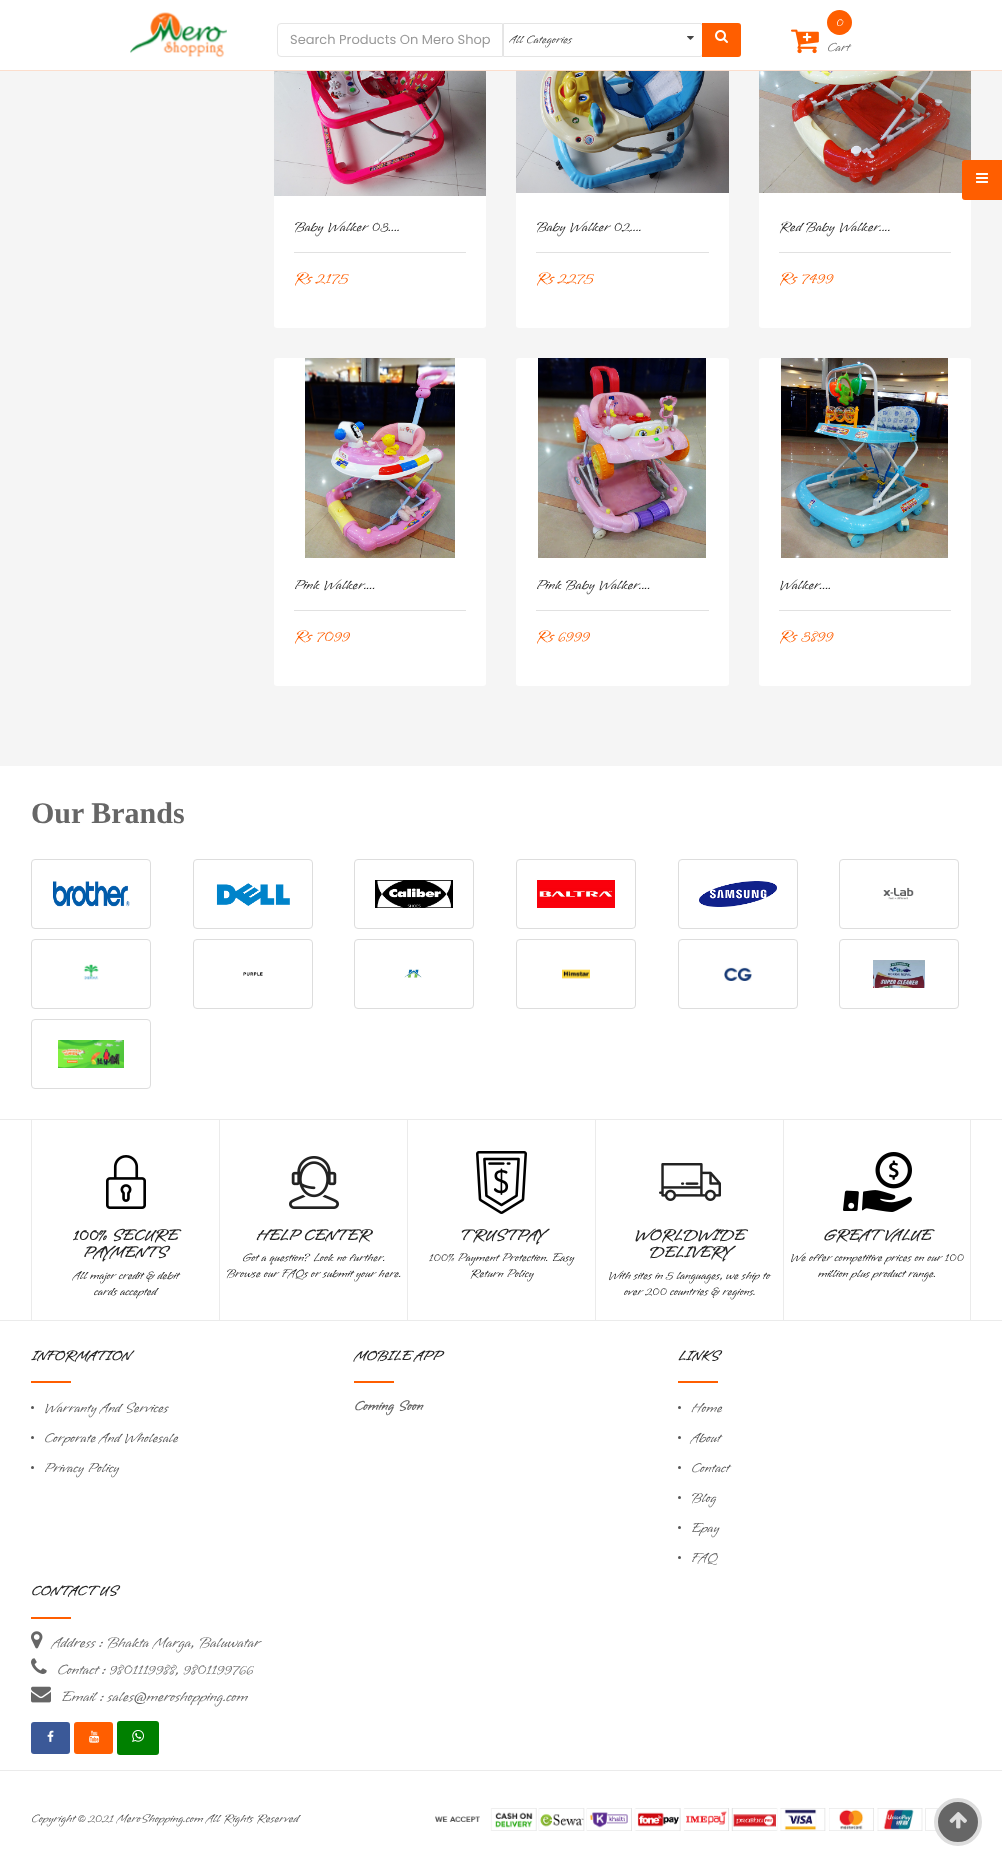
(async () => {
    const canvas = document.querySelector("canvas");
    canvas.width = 1002;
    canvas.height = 1866;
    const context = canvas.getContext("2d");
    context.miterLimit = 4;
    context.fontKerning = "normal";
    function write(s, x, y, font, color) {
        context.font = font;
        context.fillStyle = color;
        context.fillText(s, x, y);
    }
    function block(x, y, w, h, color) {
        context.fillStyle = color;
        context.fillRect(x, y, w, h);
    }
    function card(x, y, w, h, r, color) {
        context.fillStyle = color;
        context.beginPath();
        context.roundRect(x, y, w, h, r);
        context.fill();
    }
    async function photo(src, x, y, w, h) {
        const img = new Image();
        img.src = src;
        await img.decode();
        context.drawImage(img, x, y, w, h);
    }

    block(0, 0, 1002, 1866, "rgb(245, 245, 245)");
    card(274, 0, 212, 328, 3, "rgb(255, 255, 255)");
    card(516, 0, 213, 328, 3, "rgb(255, 255, 255)");
    card(759, 0, 212, 328, 3, "rgb(255, 255, 255)");
    block(0, 0, 1002, 70, "rgb(255, 255, 255)");
    block(0, 70, 1002, 1, "rgb(252, 222, 205)");
    await photo("media/1.png", 130, 12, 97, 46);
    context.beginPath();
    context.roundRect(277.5, 23.5, 225, 33, [3.5, 0, 0, 3.5]);
    context.strokeStyle = "rgb(230, 230, 230)";
    context.stroke();
    write("Search Products On Mero Shop", 290, 44, "13px Poppins", "rgb(153, 153, 153)");
    context.beginPath();
    context.roundRect(503.5, 23.5, 199, 33, [0, 2.5, 2.5, 0]);
    context.strokeStyle = "rgb(229, 229, 229)";
    context.stroke();
    context.save();
    context.beginPath();
    context.rect(509, 25, 188, 30);
    context.clip();
    write("All Categories", 509, 43, "12px Vujahday Script", "rgb(61, 61, 61)");
    context.restore();
    await photo("media/2.png", 687, 36, 7, 4);
    context.fillStyle = "rgb(255, 94, 0)";
    context.beginPath();
    context.roundRect(702, 23, 39, 34, [0, 3, 3, 0]);
    context.fill();
    await photo("media/3.png", 715, 30, 13, 13);
    await photo("media/4.png", 791, 29, 28, 25);
    context.beginPath();
    context.arc(839.5, 22.5, 12.5, 0, Math.PI * 2);
    context.fill();
    write("0", 836, 26, "12px Vujahday Script", "rgb(255, 255, 255)");
    write("Cart", 827, 51, "13px Vujahday Script", "rgb(102, 102, 102)");
    await photo("media/8.png", 759, 71, 212, 122);
    context.fillStyle = "rgb(255, 94, 0)";
    context.beginPath();
    context.roundRect(962, 160, 40, 40, [3, 0, 0, 3]);
    context.fill();
    await photo("media/5.png", 976, 173, 12, 10);
    await photo("media/6.png", 274, 71, 212, 125);
    block(294, 252, 172, 1, "rgb(225, 225, 225)");
    write("Baby Walker 03....", 294, 231, "14px Vujahday Script", "rgb(34, 34, 34)");
    write("Rs 2175", 294, 283, "16px Vujahday Script", "rgb(255, 94, 0)");
    await photo("media/7.png", 516, 71, 213, 122);
    block(536, 252, 173, 1, "rgb(225, 225, 225)");
    write("Baby Walker 02....", 536, 231, "14px Vujahday Script", "rgb(34, 34, 34)");
    write("Rs 2275", 536, 283, "16px Vujahday Script", "rgb(255, 94, 0)");
    block(779, 252, 172, 1, "rgb(225, 225, 225)");
    write("Red Baby Walker....", 779, 231, "14px Vujahday Script", "rgb(34, 34, 34)");
    write("Rs 7499", 779, 283, "16px Vujahday Script", "rgb(255, 94, 0)");
    card(274, 358, 212, 328, 3, "rgb(255, 255, 255)");
    await photo("media/9.png", 305, 358, 150, 200);
    block(294, 610, 172, 1, "rgb(225, 225, 225)");
    write("Pink Walker....", 294, 589, "14px Vujahday Script", "rgb(34, 34, 34)");
    write("Rs 7099", 294, 641, "16px Vujahday Script", "rgb(255, 94, 0)");
    card(516, 358, 213, 328, 3, "rgb(255, 255, 255)");
    await photo("media/10.png", 538, 358, 168, 200);
    block(536, 610, 173, 1, "rgb(225, 225, 225)");
    write("Pink Baby Walker....", 536, 589, "14px Vujahday Script", "rgb(34, 34, 34)");
    write("Rs 6999", 536, 641, "16px Vujahday Script", "rgb(255, 94, 0)");
    card(759, 358, 212, 328, 3, "rgb(255, 255, 255)");
    await photo("media/11.png", 781, 358, 167, 200);
    block(779, 610, 172, 1, "rgb(225, 225, 225)");
    write("Walker....", 779, 589, "14px Vujahday Script", "rgb(34, 34, 34)");
    write("Rs 3899", 779, 641, "16px Vujahday Script", "rgb(255, 94, 0)");
    block(0, 766, 1002, 1100, "rgb(255, 255, 255)");
    write("Our Brands", 31, 823, "bold 30px Liberation Serif", "rgb(102, 102, 102)");
    context.beginPath();
    context.roundRect(31.5, 859.5, 119, 69, 3.5);
    context.strokeStyle = "rgb(221, 221, 221)";
    context.stroke();
    await photo("media/12.png", 53, 881, 77, 26);
    context.beginPath();
    context.roundRect(193.5, 859.5, 119, 69, 3.5);
    context.stroke();
    await photo("media/13.png", 216, 883, 74, 23);
    context.beginPath();
    context.roundRect(354.5, 859.5, 119, 69, 3.5);
    context.stroke();
    await photo("media/14.png", 375, 880, 78, 28);
    context.beginPath();
    context.roundRect(516.5, 859.5, 119, 69, 3.5);
    context.stroke();
    await photo("media/15.png", 537, 880, 78, 28);
    context.beginPath();
    context.roundRect(678.5, 859.5, 119, 69, 3.5);
    context.stroke();
    await photo("media/16.png", 699, 881, 78, 26);
    context.beginPath();
    context.roundRect(839.5, 859.5, 119, 69, 3.5);
    context.stroke();
    await photo("media/17.png", 883, 887, 31, 13);
    context.beginPath();
    context.roundRect(31.5, 939.5, 119, 69, 3.5);
    context.stroke();
    await photo("media/18.png", 83, 964, 16, 16);
    context.beginPath();
    context.roundRect(193.5, 939.5, 119, 69, 3.5);
    context.stroke();
    await photo("media/19.png", 243, 972, 20, 4);
    context.beginPath();
    context.roundRect(354.5, 939.5, 119, 69, 3.5);
    context.stroke();
    await photo("media/20.png", 404, 969, 18, 9);
    context.beginPath();
    context.roundRect(516.5, 939.5, 119, 69, 3.5);
    context.stroke();
    await photo("media/21.png", 562, 969, 28, 10);
    context.beginPath();
    context.roundRect(678.5, 939.5, 119, 69, 3.5);
    context.stroke();
    await photo("media/22.png", 724, 967, 28, 14);
    context.beginPath();
    context.roundRect(839.5, 939.5, 119, 69, 3.5);
    context.stroke();
    await photo("media/23.png", 873, 960, 52, 28);
    context.beginPath();
    context.roundRect(31.5, 1019.5, 119, 69, 3.5);
    context.stroke();
    await photo("media/24.png", 58, 1040, 66, 28);
    block(0, 1119, 1002, 1, "rgb(235, 235, 235)");
    block(0, 1320, 1002, 1, "rgb(235, 235, 235)");
    block(31, 1120, 1, 200, "rgb(235, 235, 235)");
    await photo("media/25.png", 106, 1155, 40, 54);
    write("100% SECURE", 73, 1240, "bold 16px Vujahday Script", "rgb(34, 34, 34)");
    write("PAYMENTS", 83, 1257, "bold 16px Vujahday Script", "rgb(34, 34, 34)");
    write("All major credit & debit", 73, 1279, "12px Vujahday Script", "rgb(34, 34, 34)");
    write("cards accepted", 94, 1295, "12px Vujahday Script", "rgb(34, 34, 34)");
    block(219, 1120, 1, 200, "rgb(235, 235, 235)");
    await photo("media/26.png", 289, 1156, 50, 53);
    write("HELP CENTER", 256, 1240, "bold 16px Vujahday Script", "rgb(34, 34, 34)");
    write("Got a question? Look no further.", 242, 1261, "12px Vujahday Script", "rgb(34, 34, 34)");
    write("Browse our FAQs or submit your here.", 226, 1277, "12px Vujahday Script", "rgb(34, 34, 34)");
    block(407, 1120, 1, 200, "rgb(235, 235, 235)");
    await photo("media/27.png", 476, 1151, 51, 63);
    write("TRUSTPAY", 459, 1240, "bold 16px Vujahday Script", "rgb(34, 34, 34)");
    write("100% Payment Protection. Easy", 429, 1261, "12px Vujahday Script", "rgb(34, 34, 34)");
    write("Return Policy", 470, 1277, "12px Vujahday Script", "rgb(34, 34, 34)");
    block(595, 1120, 1, 200, "rgb(235, 235, 235)");
    await photo("media/28.png", 659, 1163, 62, 38);
    write("WORLDWIDE", 634, 1240, "bold 16px Vujahday Script", "rgb(34, 34, 34)");
    write("DELIVERY", 649, 1257, "bold 16px Vujahday Script", "rgb(34, 34, 34)");
    write("With sites in 5 languages, we ship to", 608, 1279, "12px Vujahday Script", "rgb(34, 34, 34)");
    write("over 200 countries & regions.", 624, 1295, "12px Vujahday Script", "rgb(34, 34, 34)");
    block(970, 1120, 1, 200, "rgb(235, 235, 235)");
    block(783, 1120, 1, 200, "rgb(235, 235, 235)");
    await photo("media/29.png", 843, 1152, 69, 60);
    write("GREAT VALUE", 823, 1240, "bold 16px Vujahday Script", "rgb(34, 34, 34)");
    write("We offer competitive prices on our 100", 790, 1261, "12px Vujahday Script", "rgb(34, 34, 34)");
    write("million plus product range.", 818, 1277, "12px Vujahday Script", "rgb(34, 34, 34)");
    write("INFORMATION", 31, 1360, "bold 14px Vujahday Script", "rgb(34, 34, 34)");
    block(31, 1381, 40, 2, "rgb(255, 94, 0)");
    context.fillStyle = "rgb(85, 85, 85)";
    context.beginPath();
    context.arc(32.5, 1407.5, 1.5, 0, Math.PI * 2);
    context.fill();
    write("Warranty And Services", 44, 1412, "14px Vujahday Script", "rgb(85, 85, 85)");
    context.beginPath();
    context.arc(32.5, 1437.5, 1.5, 0, Math.PI * 2);
    context.fill();
    write("Corporate And Wholesale", 44, 1442, "14px Vujahday Script", "rgb(85, 85, 85)");
    context.beginPath();
    context.arc(32.5, 1467.5, 1.5, 0, Math.PI * 2);
    context.fill();
    write("Privacy Policy", 44, 1472, "14px Vujahday Script", "rgb(85, 85, 85)");
    write("MOBILE APP", 354, 1360, "bold 14px Vujahday Script", "rgb(34, 34, 34)");
    block(354, 1381, 40, 2, "rgb(255, 94, 0)");
    write("Coming Soon", 354, 1410, "bold 14px Vujahday Script", "rgb(102, 102, 102)");
    write("LINKS", 678, 1360, "bold 14px Vujahday Script", "rgb(34, 34, 34)");
    block(678, 1381, 40, 2, "rgb(255, 94, 0)");
    context.fillStyle = "rgb(85, 85, 85)";
    context.beginPath();
    context.arc(679.5, 1407.5, 1.5, 0, Math.PI * 2);
    context.fill();
    write("Home", 691, 1412, "14px Vujahday Script", "rgb(85, 85, 85)");
    context.beginPath();
    context.arc(679.5, 1437.5, 1.5, 0, Math.PI * 2);
    context.fill();
    write("About", 691, 1442, "14px Vujahday Script", "rgb(85, 85, 85)");
    context.beginPath();
    context.arc(679.5, 1467.5, 1.5, 0, Math.PI * 2);
    context.fill();
    write("Contact", 691, 1472, "14px Vujahday Script", "rgb(85, 85, 85)");
    context.beginPath();
    context.arc(679.5, 1497.5, 1.5, 0, Math.PI * 2);
    context.fill();
    write("Blog", 691, 1502, "14px Vujahday Script", "rgb(85, 85, 85)");
    context.beginPath();
    context.arc(679.5, 1527.5, 1.5, 0, Math.PI * 2);
    context.fill();
    write("Epay", 691, 1532, "14px Vujahday Script", "rgb(85, 85, 85)");
    context.beginPath();
    context.arc(679.5, 1557.5, 1.5, 0, Math.PI * 2);
    context.fill();
    write("FAQ", 691, 1562, "14px Vujahday Script", "rgb(85, 85, 85)");
    write("CONTACT US", 31, 1595, "bold 14px Vujahday Script", "rgb(34, 34, 34)");
    block(31, 1617, 40, 2, "rgb(255, 94, 0)");
    await photo("media/30.png", 31, 1631, 12, 18);
    write("Address : Bhakta Marga, Baluwatar", 52, 1647, "15px Vujahday Script", "rgb(102, 102, 102)");
    await photo("media/31.png", 31, 1658, 16, 16);
    write("Contact : 9801119988, 9801199766", 57, 1674, "15px Vujahday Script", "rgb(102, 102, 102)");
    await photo("media/32.png", 31, 1686, 20, 17);
    write("Email : sales@meroshopping.com", 61, 1701, "15px Vujahday Script", "rgb(102, 102, 102)");
    card(31, 1722, 39, 32, 3, "rgb(59, 89, 152)");
    await photo("media/33.png", 47, 1730, 7, 12);
    card(74, 1722, 39, 32, 3, "rgb(255, 94, 0)");
    await photo("media/34.png", 89, 1730, 11, 13);
    card(117, 1721, 42, 34, 3, "rgb(0, 128, 0)");
    await photo("media/35.png", 132, 1730, 12, 12);
    block(0, 1770, 1002, 1, "rgb(235, 235, 235)");
    write("Copyright © 2021 MeroShopping.com All Rights Reserved", 31, 1822, "12px Vujahday Script", "rgb(85, 85, 85)");
    await photo("media/36.png", 435, 1808, 504, 23);
    context.fillStyle = "rgb(102, 102, 102)";
    context.beginPath();
    context.arc(958, 1822, 22, 0, Math.PI * 2);
    context.fill();
    context.lineWidth = 4;
    context.stroke();
    await photo("media/37.png", 949, 1812, 18, 17);
})();
